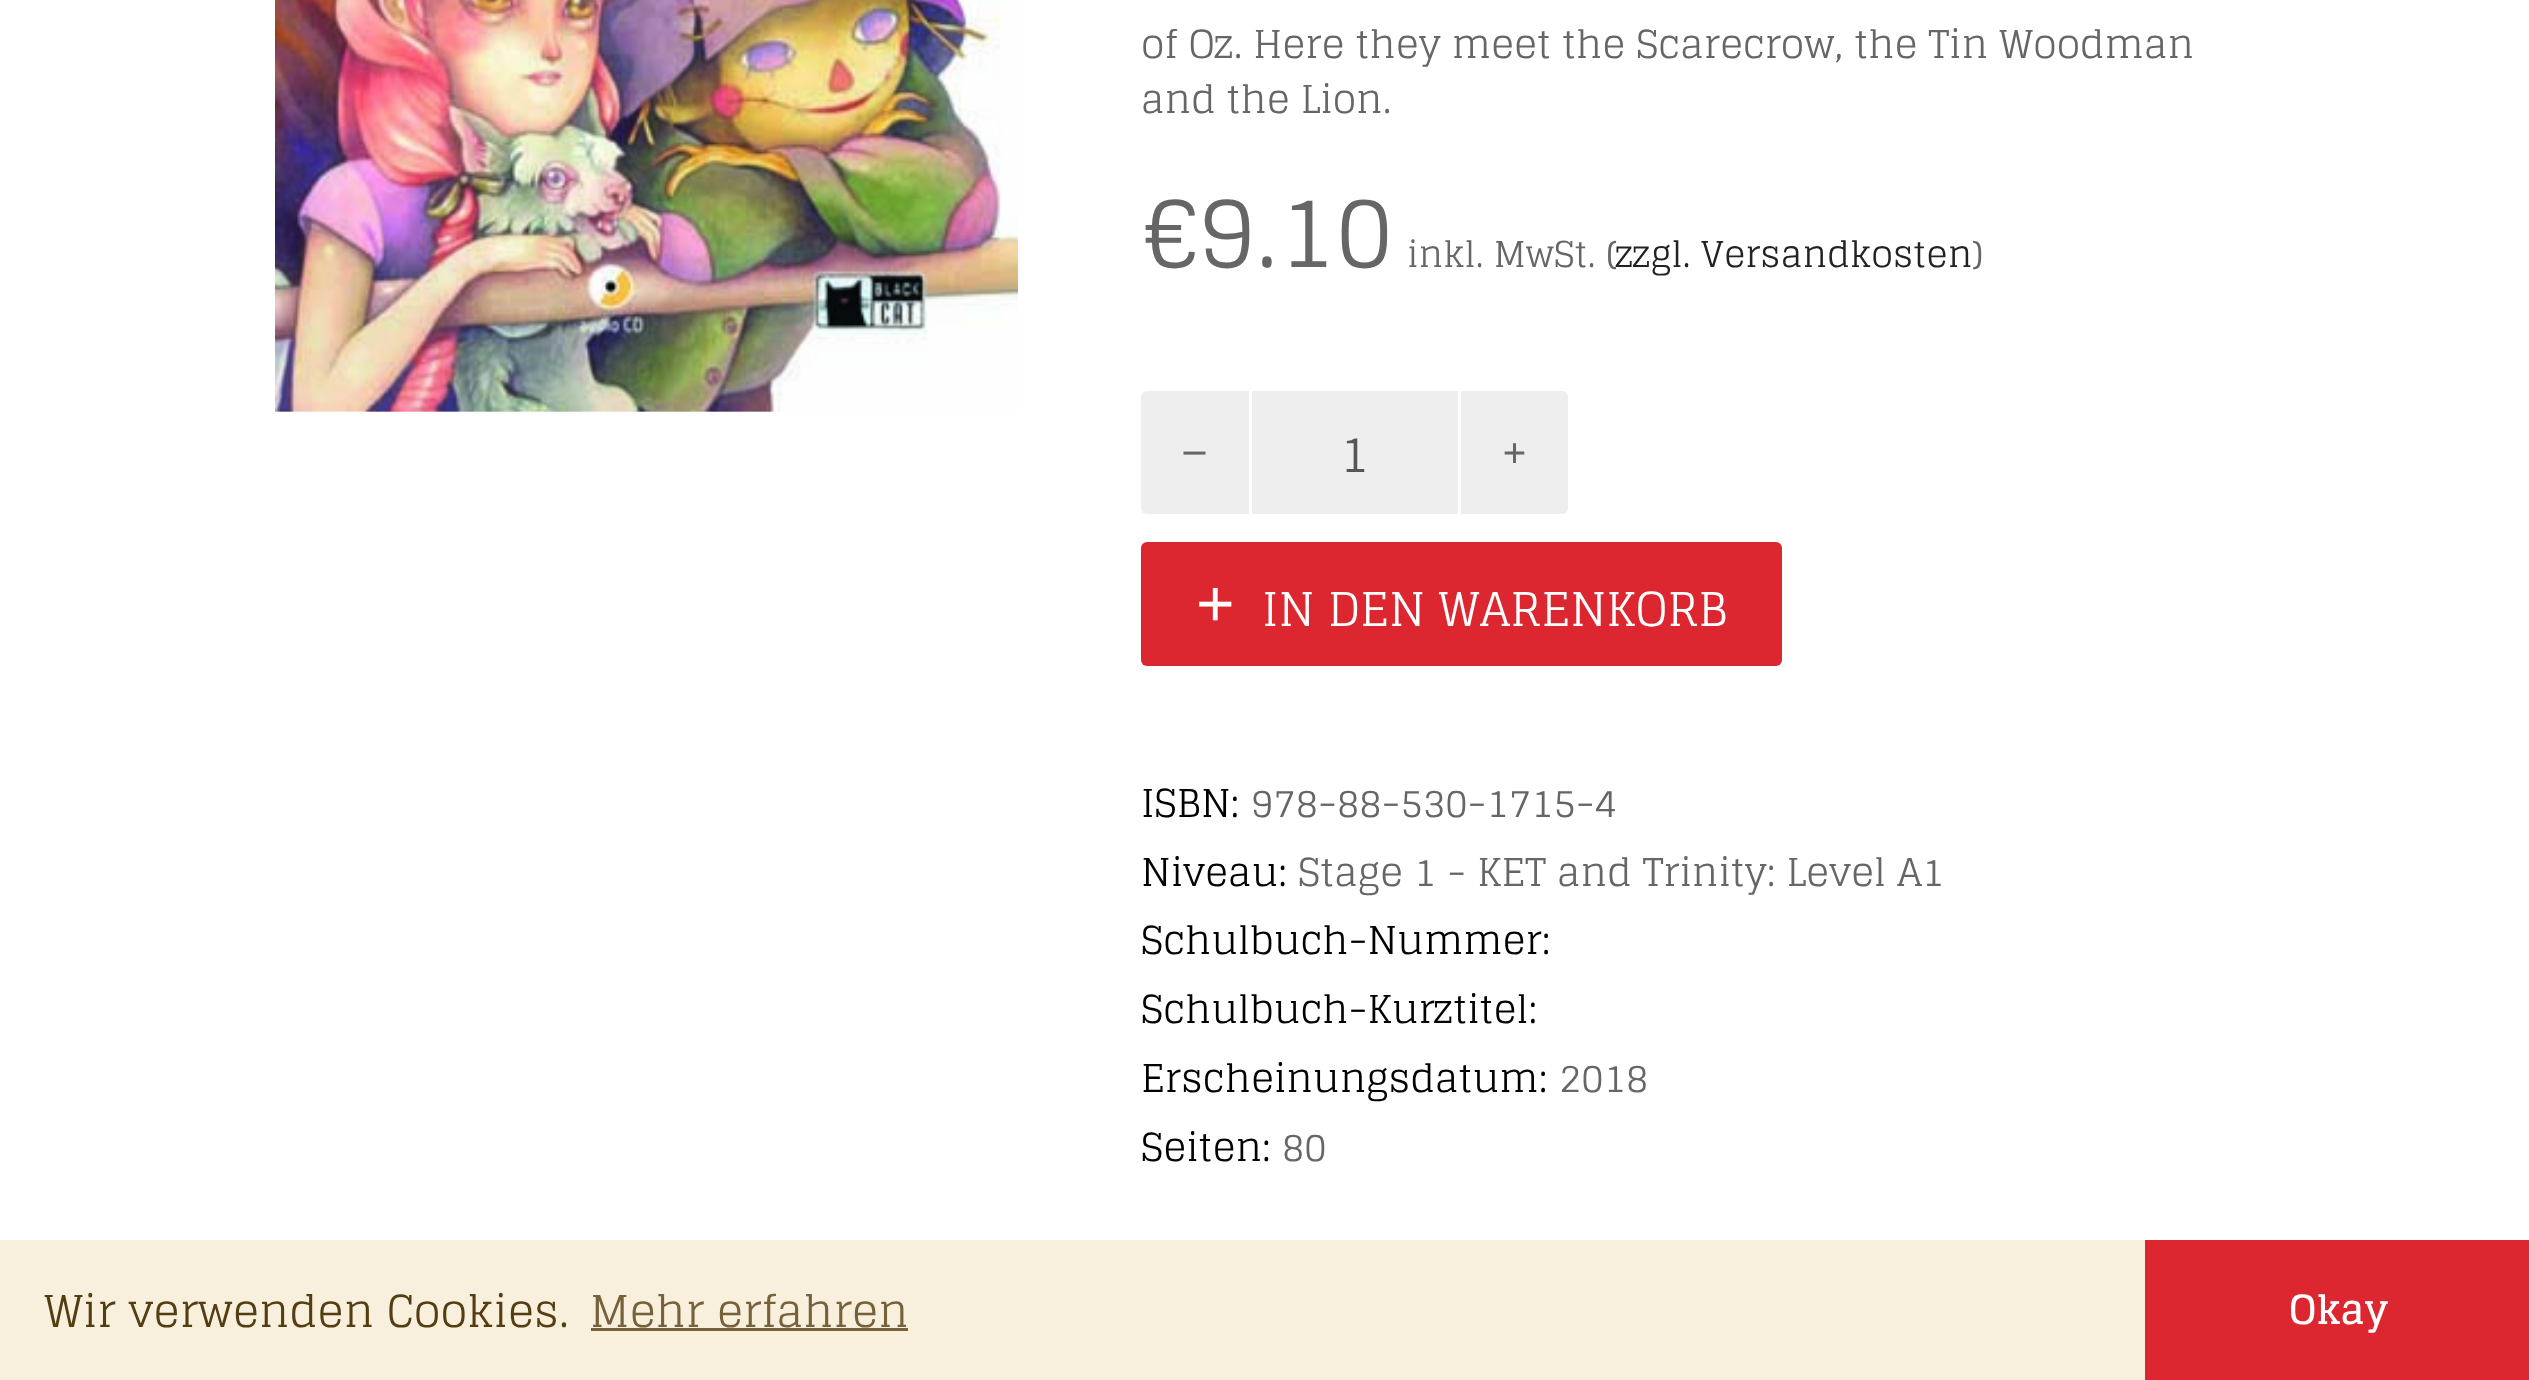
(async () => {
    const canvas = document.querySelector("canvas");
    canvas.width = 2529;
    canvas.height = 1380;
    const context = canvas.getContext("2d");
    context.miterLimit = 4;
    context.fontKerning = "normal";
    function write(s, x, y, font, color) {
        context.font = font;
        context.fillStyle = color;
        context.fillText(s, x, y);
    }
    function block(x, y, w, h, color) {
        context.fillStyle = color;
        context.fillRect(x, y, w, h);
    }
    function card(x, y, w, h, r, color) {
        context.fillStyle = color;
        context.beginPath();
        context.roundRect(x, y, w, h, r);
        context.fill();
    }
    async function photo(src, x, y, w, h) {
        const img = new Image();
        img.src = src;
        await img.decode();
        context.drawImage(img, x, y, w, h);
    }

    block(0, 0, 2529, 1380, "rgb(255, 255, 255)");
    await photo("media/1.png", 275, 0, 743, 412);
    write("of Oz. Here they meet the Scarecrow, the Tin Woodman", 1141, 58, "38.5px Glegoo", "rgb(102, 102, 102)");
    write("and the Lion.", 1141, 113, "38.5px Glegoo", "rgb(102, 102, 102)");
    write("€9.10", 1141, 267, "99px Glegoo", "rgb(102, 102, 102)");
    write("inkl. MwSt. (", 1407, 267, "35.75px Glegoo", "rgb(102, 102, 102)");
    write("zzgl. Versandkosten", 1616, 267, "35.75px Glegoo", "rgb(34, 34, 34)");
    write(")", 1973, 267, "35.75px Glegoo", "rgb(102, 102, 102)");
    card(1141, 391, 427, 123, 6, "rgb(238, 238, 238)");
    write("–", 1180, 469, "50px Glegoo", "rgb(102, 102, 102)");
    block(1458, 391, 3, 123, "rgb(255, 255, 255)");
    block(1249, 391, 3, 123, "rgb(255, 255, 255)");
    write("1", 1340, 472, "50px Glegoo", "rgb(85, 85, 85)");
    write("+", 1500, 469, "50px Glegoo", "rgb(102, 102, 102)");
    card(1141, 542, 641, 124, 6, "rgb(220, 38, 48)");
    write("+", 1196, 626, "66px Liberation Sans", "rgb(255, 255, 255)");
    write("IN DEN WARENKORB", 1262, 626, "46.75px Glegoo", "rgb(255, 255, 255)");
    write("ISBN:", 1141, 817, "38.5px Glegoo", "rgb(0, 0, 0)");
    write("978-88-530-1715-4", 1251, 817, "38.5px Glegoo", "rgb(102, 102, 102)");
    write("Niveau:", 1141, 886, "38.5px Glegoo", "rgb(0, 0, 0)");
    write("Stage 1 - KET and Trinity: Level A1", 1298, 886, "38.5px Glegoo", "rgb(102, 102, 102)");
    write("Schulbuch-Nummer:", 1141, 954, "38.5px Glegoo", "rgb(0, 0, 0)");
    write("Schulbuch-Kurztitel:", 1141, 1023, "38.5px Glegoo", "rgb(0, 0, 0)");
    write("Erscheinungsdatum:", 1141, 1092, "38.5px Glegoo", "rgb(0, 0, 0)");
    write("2018", 1559, 1092, "38.5px Glegoo", "rgb(102, 102, 102)");
    write("Seiten:", 1141, 1161, "38.5px Glegoo", "rgb(0, 0, 0)");
    write("80", 1282, 1161, "38.5px Glegoo", "rgb(102, 102, 102)");
    block(0, 1240, 2145, 140, "rgb(248, 239, 221)");
    write("Wir verwenden Cookies.", 44, 1327, "44px Glegoo", "rgb(84, 61, 17)");
    write("Mehr erfahren", 590, 1327, "44px Glegoo", "rgb(117, 97, 58)");
    block(591, 1328, 317, 3, "rgb(117, 97, 58)");
    block(2145, 1240, 384, 140, "rgb(220, 38, 48)");
    write("Okay", 2289, 1324, "bold 40px Glegoo", "rgb(255, 255, 255)");
})();
